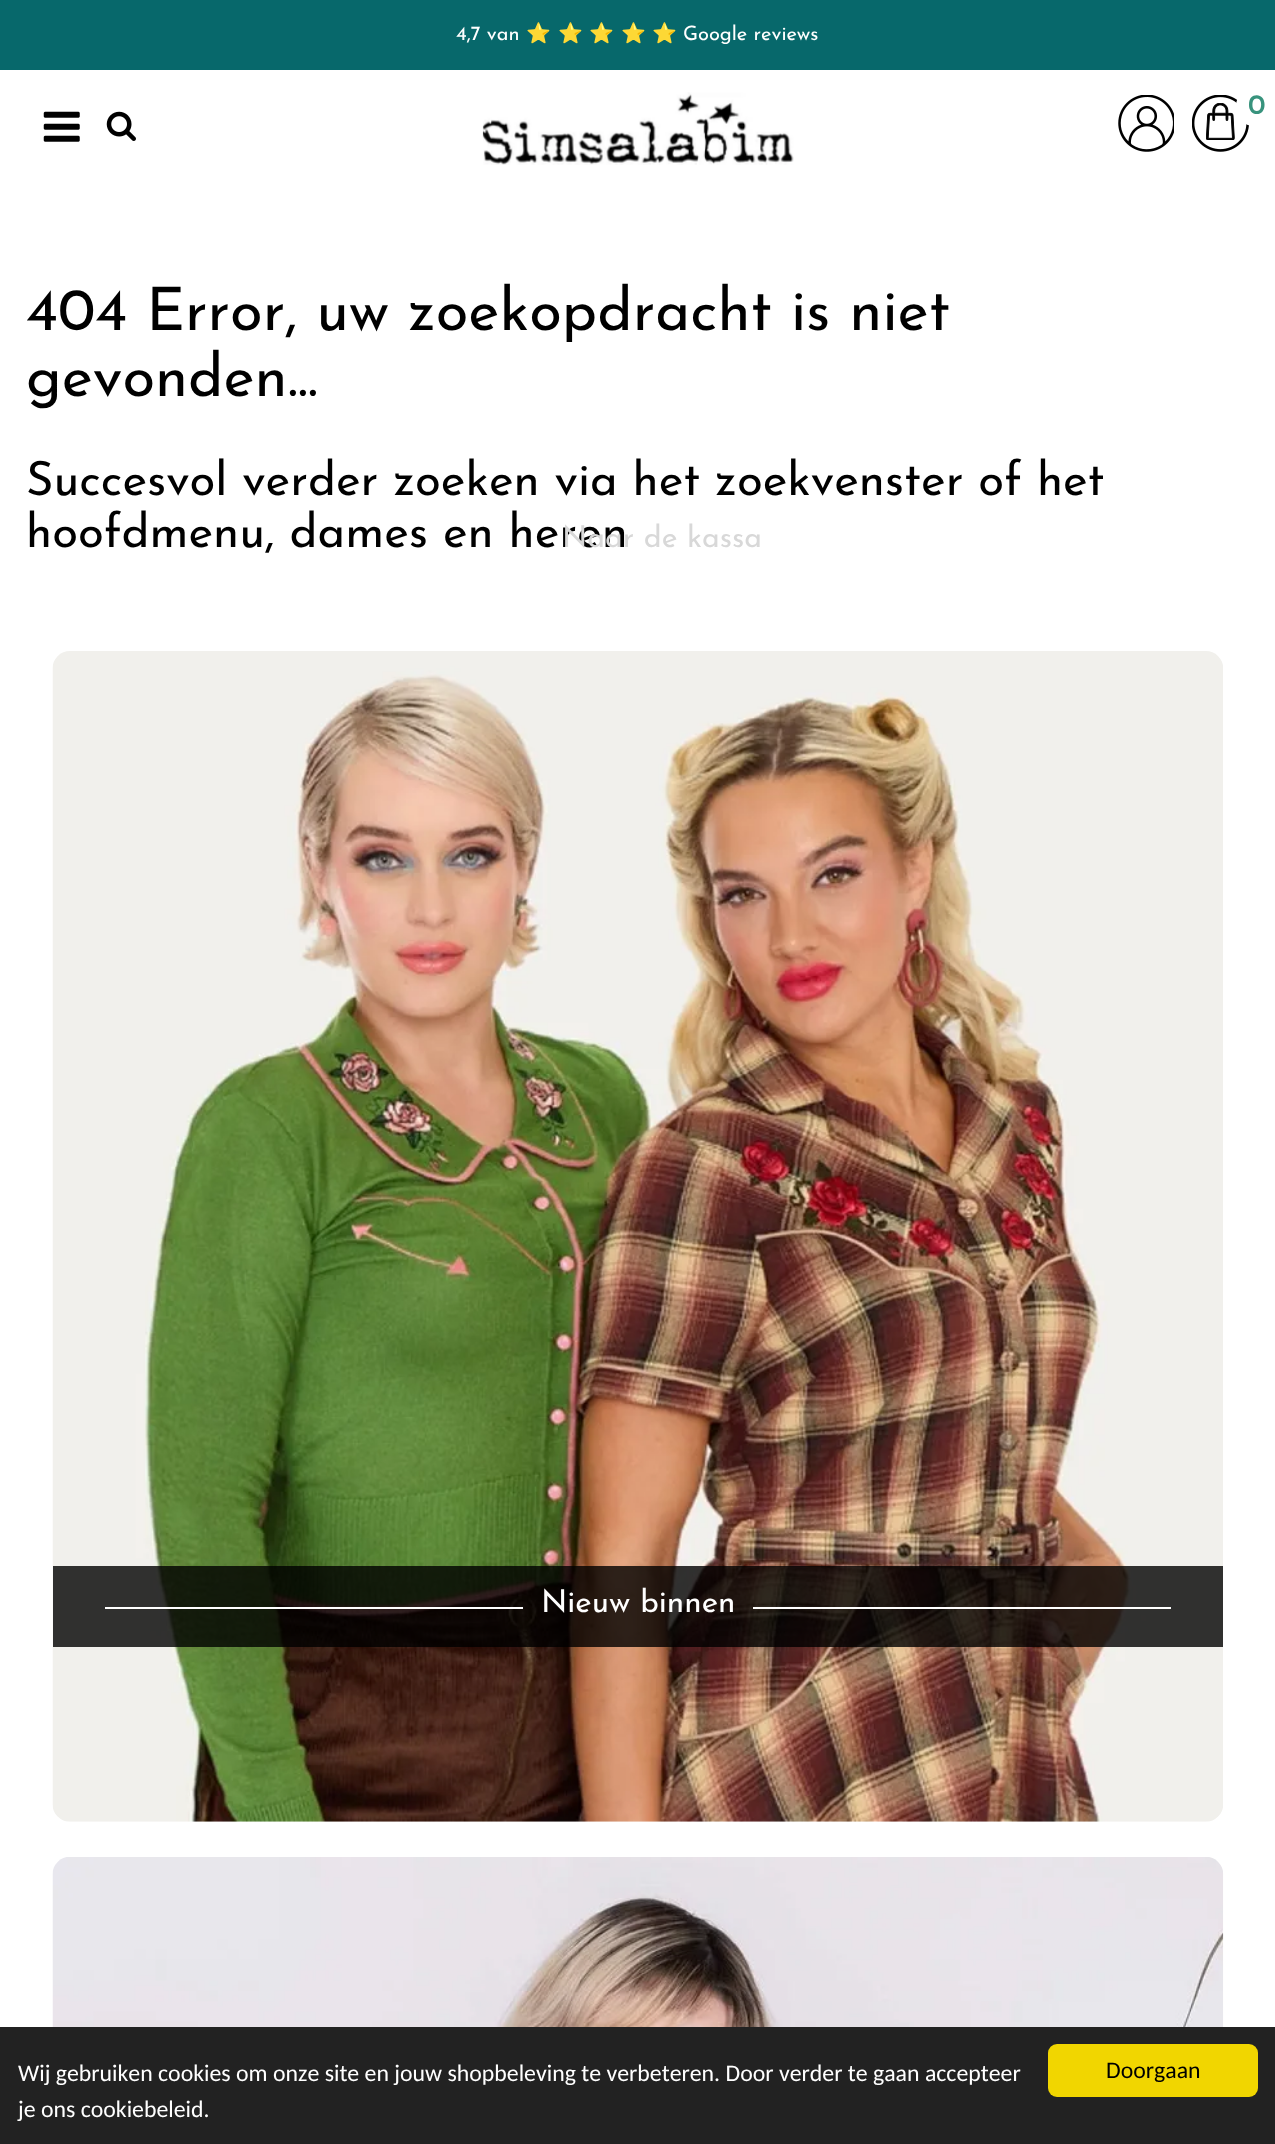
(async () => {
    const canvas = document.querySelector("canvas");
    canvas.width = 1275;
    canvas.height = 2144;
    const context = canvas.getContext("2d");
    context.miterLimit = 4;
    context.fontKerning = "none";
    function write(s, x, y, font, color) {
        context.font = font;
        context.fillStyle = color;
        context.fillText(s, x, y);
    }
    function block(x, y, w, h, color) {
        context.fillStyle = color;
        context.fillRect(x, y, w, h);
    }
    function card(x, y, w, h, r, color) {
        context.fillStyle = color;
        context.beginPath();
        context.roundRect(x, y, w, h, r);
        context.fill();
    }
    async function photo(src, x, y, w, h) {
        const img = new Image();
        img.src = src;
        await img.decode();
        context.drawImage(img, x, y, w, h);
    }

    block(0, 0, 1275, 2144, "rgb(255, 255, 255)");
    block(0, 0, 1275, 70, "rgb(7, 104, 107)");
    write("4,7 van", 456, 40, "20px Josefin Sans", "rgb(255, 255, 255)");
    write("⭐", 526, 40, "20px Noto Color Emoji", "rgb(255, 255, 255)");
    write("⭐", 558, 40, "20px Noto Color Emoji", "rgb(255, 255, 255)");
    write("⭐", 589, 40, "20px Noto Color Emoji", "rgb(255, 255, 255)");
    write("⭐", 621, 40, "20px Noto Color Emoji", "rgb(255, 255, 255)");
    write("⭐", 652, 40, "20px Noto Color Emoji", "rgb(255, 255, 255)");
    write("Google reviews", 683, 40, "20px Josefin Sans", "rgb(255, 255, 255)");
    await photo("media/1.png", 482, 92, 312, 73);
    await photo("media/2.png", 1118, 95, 56, 57);
    await photo("media/3.png", 1192, 95, 57, 57);
    card(1236, 88, 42, 38, 18, "rgb(255, 255, 255)");
    write("0", 1248, 114, "600 28px Josefin Sans", "rgb(56, 147, 125)");
    await photo("media/4.png", 43, 111, 37, 31);
    await photo("media/5.png", 106, 111, 30, 30);
    write("hoofdmenu, dames en heren", 26, 547, "47.25px Josefin Sans", "rgb(0, 0, 0)");
    write("Naar de kassa", 562, 547, "30.25px Josefin Sans", "rgb(216, 216, 216)");
    write("404 Error, uw zoekopdracht is niet", 26, 330, "59.8px Josefin Sans", "rgb(0, 0, 0)");
    write("gevonden...", 26, 396, "59.8px Josefin Sans", "rgb(0, 0, 0)");
    write("Succesvol verder zoeken via het zoekvenster of het", 26, 495, "47.25px Josefin Sans", "rgb(0, 0, 0)");
    await photo("media/6.png", 52, 651, 1171, 1171);
    block(53, 1566, 1170, 81, "rgba(0, 0, 0, 0.8)");
    block(105, 1607, 418, 2, "rgb(255, 255, 255)");
    write("Nieuw binnen", 541, 1612, "31.5px Josefin Sans", "rgb(255, 255, 255)");
    block(753, 1607, 418, 2, "rgb(255, 255, 255)");
    await photo("media/7.png", 52, 1857, 1172, 170);
    block(0, 2027, 1275, 117, "rgb(34, 34, 34)");
    write("Wij gebruiken cookies om onze site en jouw shopbeleving te verbeteren. Door verder te gaan accepteer", 18, 2081, "23.8px Carlito", "rgb(255, 255, 255)");
    write("je ons cookiebeleid.", 18, 2117, "23.8px Carlito", "rgb(255, 255, 255)");
    card(1048, 2044, 210, 53, 9, "rgb(241, 214, 0)");
    write("Doorgaan", 1106, 2078, "23.8px Carlito", "rgb(0, 0, 0)");
})();
